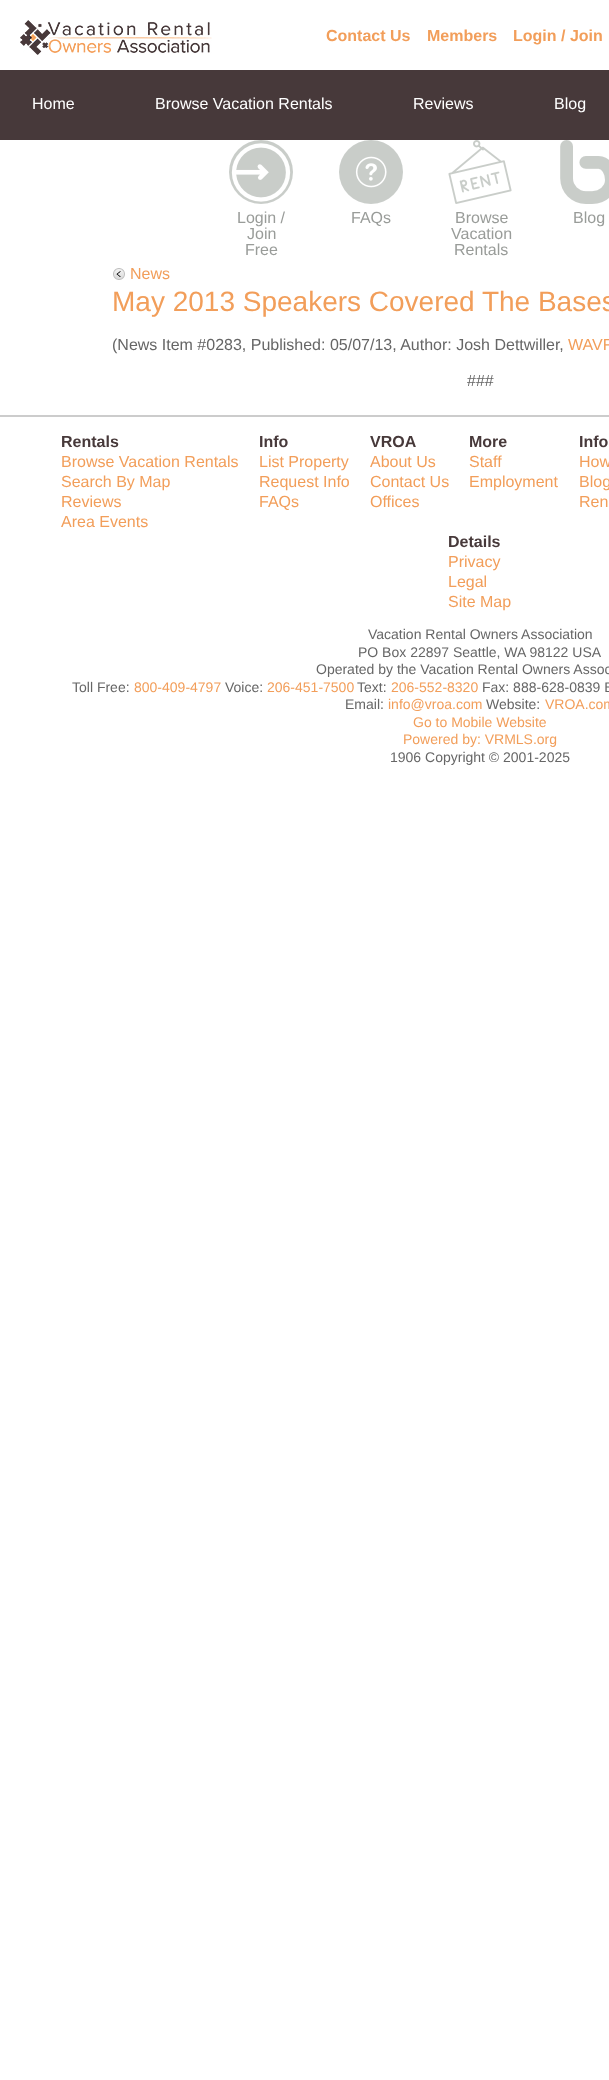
(async () => {
    const canvas = document.querySelector("canvas");
    canvas.width = 609;
    canvas.height = 2080;
    const context = canvas.getContext("2d");
    context.miterLimit = 4;
    context.fontKerning = "normal";
    function write(s, x, y, font, color) {
        context.font = font;
        context.fillStyle = color;
        context.fillText(s, x, y);
    }
    function block(x, y, w, h, color) {
        context.fillStyle = color;
        context.fillRect(x, y, w, h);
    }
    async function photo(src, x, y, w, h) {
        const img = new Image();
        img.src = src;
        await img.decode();
        context.drawImage(img, x, y, w, h);
    }

    block(0, 0, 609, 2080, "rgb(255, 255, 255)");
    await photo("media/1.png", 20, 20, 192, 35);
    write("Contact Us", 326, 41, "bold 16px Liberation Sans", "rgb(242, 158, 90)");
    write("Members", 427, 41, "bold 16px Liberation Sans", "rgb(242, 158, 90)");
    write("Login / Join", 513, 41, "bold 16px Liberation Sans", "rgb(242, 158, 90)");
    block(0, 70, 609, 70, "rgb(71, 57, 58)");
    write("Home", 32, 109, "16px Liberation Sans", "rgb(255, 255, 255)");
    write("Browse Vacation Rentals", 155, 109, "16px Liberation Sans", "rgb(255, 255, 255)");
    write("Reviews", 413, 109, "16px Liberation Sans", "rgb(255, 255, 255)");
    write("Blog", 554, 109, "16px Liberation Sans", "rgb(255, 255, 255)");
    await photo("media/2.png", 229, 140, 64, 64);
    write("Login /", 237, 223, "16px Liberation Sans", "rgb(153, 156, 153)");
    write("Join", 247, 239, "16px Liberation Sans", "rgb(153, 156, 153)");
    write("Free", 245, 255, "16px Liberation Sans", "rgb(153, 156, 153)");
    await photo("media/3.png", 339, 140, 64, 64);
    write("FAQs", 351, 223, "16px Liberation Sans", "rgb(153, 156, 153)");
    await photo("media/4.png", 448, 140, 64, 64);
    write("Browse", 455, 223, "16px Liberation Sans", "rgb(153, 156, 153)");
    write("Vacation", 451, 239, "16px Liberation Sans", "rgb(153, 156, 153)");
    write("Rentals", 454, 255, "16px Liberation Sans", "rgb(153, 156, 153)");
    await photo("media/5.png", 560, 140, 49, 64);
    write("Blog", 573, 223, "16px Liberation Sans", "rgb(153, 156, 153)");
    await photo("media/6.png", 113, 268, 12, 12);
    write("News", 130, 279, "16px Liberation Sans", "rgb(242, 158, 90)");
    write("May 2013 Speakers Covered The Bases", 112, 311, "28px Liberation Sans", "rgb(242, 158, 90)");
    write("(News Item #0283, Published: 05/07/13, Author: Josh Dettwiller,", 112, 350, "16px Liberation Sans", "rgb(102, 102, 102)");
    write("WAVR", 568, 350, "16px Liberation Sans", "rgb(242, 158, 90)");
    write("###", 467, 386, "16px Liberation Sans", "rgb(102, 102, 102)");
    block(0, 415, 609, 2, "rgb(204, 204, 204)");
    write("Rentals", 61, 447, "bold 16px Liberation Sans", "rgb(71, 57, 58)");
    write("Browse Vacation Rentals", 61, 467, "16px Liberation Sans", "rgb(242, 158, 90)");
    write("Search By Map", 61, 487, "16px Liberation Sans", "rgb(242, 158, 90)");
    write("Reviews", 61, 507, "16px Liberation Sans", "rgb(242, 158, 90)");
    write("Area Events", 61, 527, "16px Liberation Sans", "rgb(242, 158, 90)");
    write("Info", 259, 447, "bold 16px Liberation Sans", "rgb(71, 57, 58)");
    write("List Property", 259, 467, "16px Liberation Sans", "rgb(242, 158, 90)");
    write("Request Info", 259, 487, "16px Liberation Sans", "rgb(242, 158, 90)");
    write("FAQs", 259, 507, "16px Liberation Sans", "rgb(242, 158, 90)");
    write("VROA", 370, 447, "bold 16px Liberation Sans", "rgb(71, 57, 58)");
    write("About Us", 370, 467, "16px Liberation Sans", "rgb(242, 158, 90)");
    write("Contact Us", 370, 487, "16px Liberation Sans", "rgb(242, 158, 90)");
    write("Offices", 370, 507, "16px Liberation Sans", "rgb(242, 158, 90)");
    write("More", 469, 447, "bold 16px Liberation Sans", "rgb(71, 57, 58)");
    write("Staff", 469, 467, "16px Liberation Sans", "rgb(242, 158, 90)");
    write("Employment", 469, 487, "16px Liberation Sans", "rgb(242, 158, 90)");
    write("Info", 579, 447, "bold 16px Liberation Sans", "rgb(71, 57, 58)");
    write("How", 579, 467, "16px Liberation Sans", "rgb(242, 158, 90)");
    write("Blog", 579, 487, "16px Liberation Sans", "rgb(242, 158, 90)");
    write("Ren", 579, 507, "16px Liberation Sans", "rgb(242, 158, 90)");
    write("Details", 448, 547, "bold 16px Liberation Sans", "rgb(71, 57, 58)");
    write("Privacy", 448, 567, "16px Liberation Sans", "rgb(242, 158, 90)");
    write("Legal", 448, 587, "16px Liberation Sans", "rgb(242, 158, 90)");
    write("Site Map", 448, 607, "16px Liberation Sans", "rgb(242, 158, 90)");
    write("Vacation Rental Owners Association", 368, 639, "14px Liberation Sans", "rgb(102, 102, 102)");
    write("PO Box 22897 Seattle, WA 98122 USA", 358, 657, "14px Liberation Sans", "rgb(102, 102, 102)");
    write("Operated by the Vacation Rental Owners Assoc", 316, 674, "14px Liberation Sans", "rgb(102, 102, 102)");
    write("Toll Free:", 72, 692, "14px Liberation Sans", "rgb(102, 102, 102)");
    write("800-409-4797", 134, 692, "14px Liberation Sans", "rgb(242, 158, 90)");
    write("Voice:", 225, 692, "14px Liberation Sans", "rgb(102, 102, 102)");
    write("206-451-7500", 267, 692, "14px Liberation Sans", "rgb(242, 158, 90)");
    write("Text:", 357, 692, "14px Liberation Sans", "rgb(102, 102, 102)");
    write("206-552-8320", 391, 692, "14px Liberation Sans", "rgb(242, 158, 90)");
    write("Fax: 888-628-0839 B", 482, 692, "14px Liberation Sans", "rgb(102, 102, 102)");
    write("Email:", 345, 709, "14px Liberation Sans", "rgb(102, 102, 102)");
    write("info@vroa.com", 388, 709, "14px Liberation Sans", "rgb(242, 158, 90)");
    write("Website:", 486, 709, "14px Liberation Sans", "rgb(102, 102, 102)");
    write("VROA.com", 545, 709, "14px Liberation Sans", "rgb(242, 158, 90)");
    write("Go to Mobile Website", 413, 727, "14px Liberation Sans", "rgb(242, 158, 90)");
    write("Powered by: VRMLS.org", 403, 744, "14px Liberation Sans", "rgb(242, 158, 90)");
    write("1906 Copyright © 2001-2025", 390, 762, "14px Liberation Sans", "rgb(102, 102, 102)");
})();
